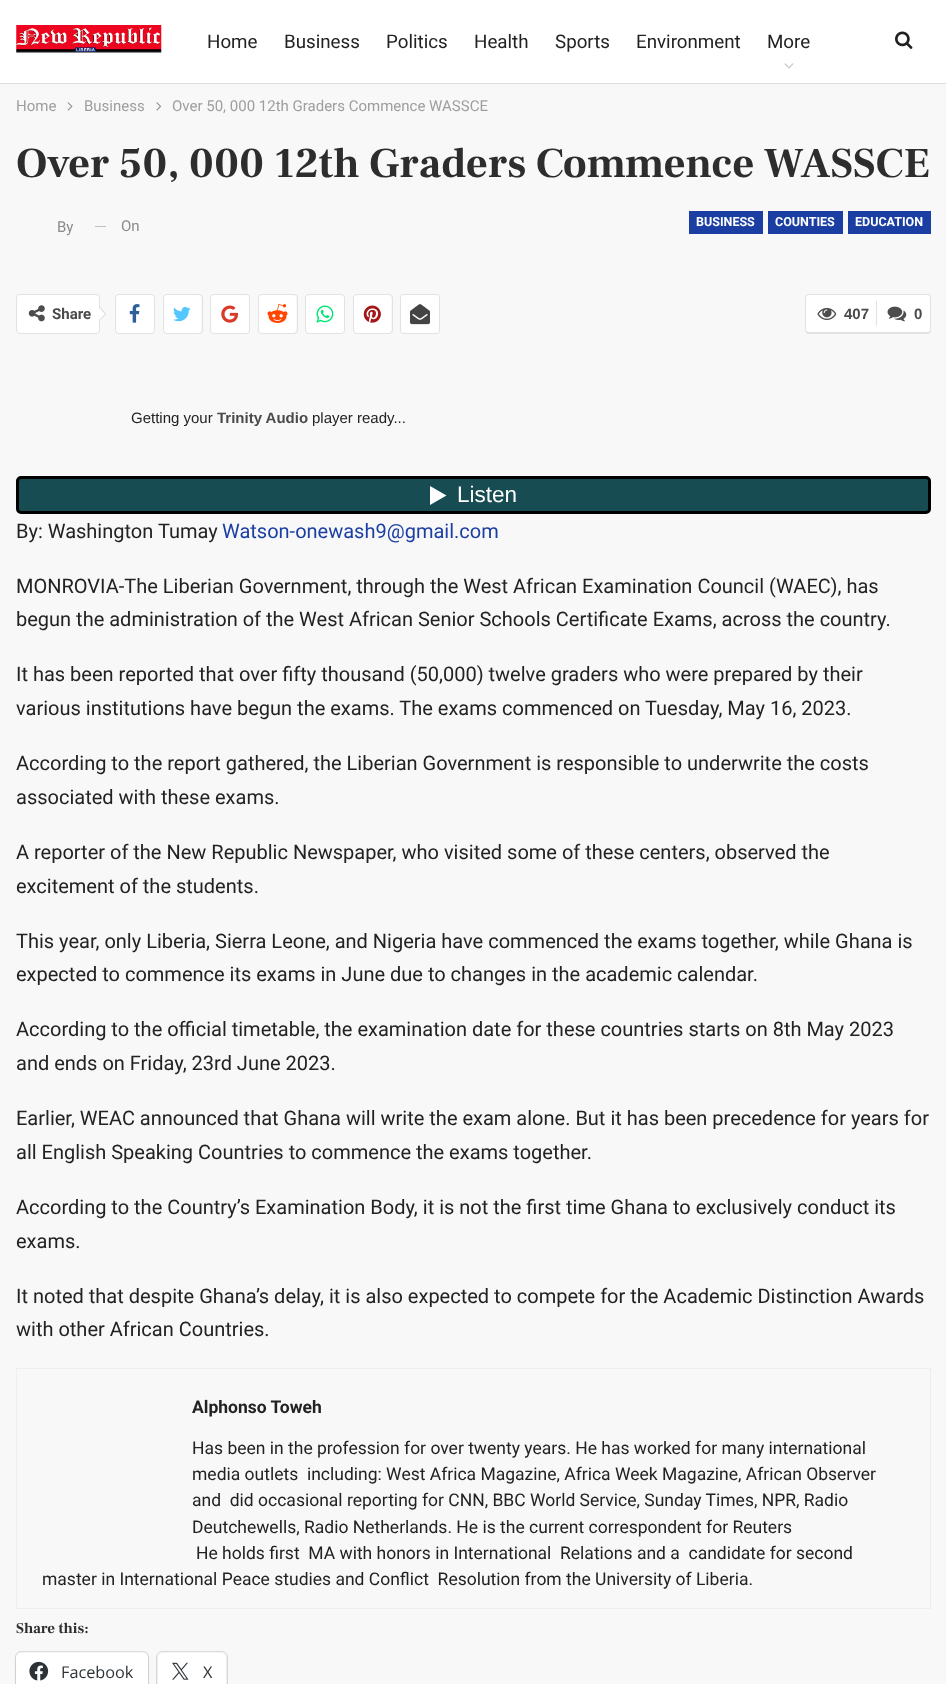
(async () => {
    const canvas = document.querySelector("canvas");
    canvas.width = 946;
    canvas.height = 1684;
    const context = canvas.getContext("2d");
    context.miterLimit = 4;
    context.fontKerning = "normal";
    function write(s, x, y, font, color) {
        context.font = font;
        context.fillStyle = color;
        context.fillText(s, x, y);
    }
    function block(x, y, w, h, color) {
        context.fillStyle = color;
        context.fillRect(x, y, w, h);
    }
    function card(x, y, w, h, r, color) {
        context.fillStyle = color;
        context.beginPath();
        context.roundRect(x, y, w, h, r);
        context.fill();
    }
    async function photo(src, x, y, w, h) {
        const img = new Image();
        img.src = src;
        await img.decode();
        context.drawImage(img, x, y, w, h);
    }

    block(0, 0, 946, 1684, "rgb(248, 248, 248)");
    block(0, 83, 946, 1, "rgb(222, 222, 222)");
    block(0, 0, 946, 83, "rgb(255, 255, 255)");
    await photo("media/1.png", 16, 25, 146, 28);
    write("Home", 207, 48, "18.75px Roboto", "rgb(34, 34, 34)");
    write("Business", 284, 48, "18.75px Roboto", "rgb(34, 34, 34)");
    write("Politics", 386, 48, "18.75px Roboto", "rgb(34, 34, 34)");
    write("Health", 474, 48, "18.75px Roboto", "rgb(34, 34, 34)");
    write("Sports", 555, 48, "18.75px Roboto", "rgb(34, 34, 34)");
    write("Environment", 636, 48, "18.75px Roboto", "rgb(34, 34, 34)");
    write("More", 767, 48, "18.75px Roboto", "rgb(34, 34, 34)");
    await photo("media/2.png", 784, 63, 10, 6);
    await photo("media/3.png", 895, 31, 18, 18);
    write("Home", 16, 111, "15px Roboto", "rgb(158, 158, 158)");
    await photo("media/4.png", 67, 102, 6, 9);
    write("Business", 84, 111, "15px Roboto", "rgb(158, 158, 158)");
    await photo("media/5.png", 156, 102, 6, 9);
    write("Over 50, 000 12th Graders Commence WASSCE", 172, 111, "15px Roboto", "rgb(158, 158, 158)");
    write("Over 50, 000 12th Graders Commence WASSCE", 16, 177, "bold 42.5px Frank Ruhl Libre", "rgb(45, 45, 45)");
    write("By", 57, 232, "15px Roboto", "rgb(139, 139, 139)");
    block(95, 226, 11, 1, "rgb(191, 191, 191)");
    write("On", 121, 231, "15px Roboto", "rgb(139, 139, 139)");
    block(689, 211, 74, 23, "rgb(27, 62, 163)");
    write("BUSINESS", 696, 226, "bold 12.5px Roboto", "rgb(255, 255, 255)");
    block(768, 211, 75, 23, "rgb(27, 62, 163)");
    write("COUNTIES", 775, 226, "bold 12.5px Roboto", "rgb(255, 255, 255)");
    block(848, 211, 83, 23, "rgb(27, 62, 163)");
    write("EDUCATION", 855, 226, "bold 12.5px Roboto", "rgb(255, 255, 255)");
    context.beginPath();
    context.roundRect(16.5, 294.5, 83, 39, 3.5);
    context.fill();
    context.strokeStyle = "rgb(226, 226, 226)";
    context.stroke();
    await photo("media/6.png", 28, 305, 17, 17);
    write("Share", 52, 319, "bold 15px Roboto", "rgb(75, 74, 74)");
    context.fillStyle = "rgb(215, 215, 215)";
    context.beginPath();
    context.moveTo(99, 321);
    context.lineTo(99, 306);
    context.lineTo(106, 314);
    context.closePath();
    context.fill();
    context.fillStyle = "rgb(255, 255, 255)";
    context.beginPath();
    context.moveTo(99, 320);
    context.lineTo(99, 307.5);
    context.lineTo(105, 314);
    context.closePath();
    context.fill();
    context.beginPath();
    context.roundRect(115.5, 294.5, 39, 39, 3.5);
    context.stroke();
    card(116, 295, 38, 38, 4, "rgb(255, 255, 255)");
    await photo("media/7.png", 129, 304, 11, 19);
    context.beginPath();
    context.roundRect(163.5, 294.5, 39, 39, 3.5);
    context.stroke();
    card(164, 295, 37, 38, 4, "rgb(255, 255, 255)");
    await photo("media/8.png", 173, 307, 18, 15);
    context.beginPath();
    context.roundRect(210.5, 294.5, 39, 39, 3.5);
    context.stroke();
    card(211, 295, 38, 38, 4, "rgb(255, 255, 255)");
    await photo("media/9.png", 221, 305, 17, 18);
    context.beginPath();
    context.roundRect(258.5, 294.5, 39, 39, 3.5);
    context.stroke();
    card(259, 295, 37, 38, 4, "rgb(255, 255, 255)");
    await photo("media/10.png", 267, 304, 21, 19);
    context.beginPath();
    context.roundRect(305.5, 294.5, 39, 39, 3.5);
    context.stroke();
    card(306, 295, 38, 38, 4, "rgb(255, 255, 255)");
    await photo("media/11.png", 316, 305, 18, 18);
    context.beginPath();
    context.roundRect(353.5, 294.5, 39, 39, 3.5);
    context.stroke();
    card(354, 295, 37, 38, 4, "rgb(255, 255, 255)");
    await photo("media/12.png", 363, 305, 18, 18);
    context.beginPath();
    context.roundRect(400.5, 294.5, 39, 39, 3.5);
    context.stroke();
    card(401, 295, 38, 38, 4, "rgb(255, 255, 255)");
    await photo("media/13.png", 410, 304, 20, 21);
    context.beginPath();
    context.roundRect(806, 295, 70, 38, [2.5, 0, 0, 2.5]);
    context.fill();
    context.fillStyle = "rgb(226, 226, 226)";
    context.beginPath();
    context.moveTo(809, 294);
    context.lineTo(876, 294);
    context.lineTo(876, 334);
    context.lineTo(809, 334);
    context.bezierCurveTo(807, 334, 805, 332, 805, 330);
    context.lineTo(805, 298);
    context.bezierCurveTo(805, 295, 807, 294, 809, 294);
    context.closePath();
    context.moveTo(809, 295);
    context.lineTo(876, 295);
    context.lineTo(876, 332);
    context.lineTo(809, 332);
    context.bezierCurveTo(807, 332, 806, 331, 806, 330);
    context.lineTo(806, 298);
    context.bezierCurveTo(806, 296, 807, 295, 809, 295);
    context.closePath();
    context.fill("evenodd");
    await photo("media/14.png", 817, 307, 20, 13);
    write("407", 844, 319, "bold 15px Liberation Sans", "rgb(75, 74, 74)");
    context.fillStyle = "rgb(255, 255, 255)";
    context.beginPath();
    context.roundRect(876, 295, 54, 38, [0, 2.5, 2.5, 0]);
    context.fill();
    context.fillStyle = "rgb(226, 226, 226)";
    context.beginPath();
    context.moveTo(876, 294);
    context.lineTo(928, 294);
    context.bezierCurveTo(930, 294, 931, 295, 931, 298);
    context.lineTo(931, 330);
    context.bezierCurveTo(931, 332, 930, 334, 928, 334);
    context.lineTo(876, 334);
    context.closePath();
    context.moveTo(876, 295);
    context.lineTo(928, 295);
    context.bezierCurveTo(929, 295, 930, 296, 930, 298);
    context.lineTo(930, 330);
    context.bezierCurveTo(930, 331, 929, 332, 928, 332);
    context.lineTo(876, 332);
    context.closePath();
    context.fill("evenodd");
    block(876, 301, 1, 25, "rgb(226, 226, 226)");
    await photo("media/15.png", 887, 306, 20, 16);
    write("0", 914, 319, "bold 15px Liberation Sans", "rgb(75, 74, 74)");
    write("Getting your", 131, 423, "15px Liberation Sans", "rgb(34, 34, 34)");
    write("Trinity Audio", 217, 423, "bold 15px Liberation Sans", "rgb(75, 74, 74)");
    write("player ready...", 312, 423, "15px Liberation Sans", "rgb(34, 34, 34)");
    context.fillStyle = "rgb(24, 76, 83)";
    context.beginPath();
    context.roundRect(17.5, 477.5, 912, 35, 3.5);
    context.fill();
    context.strokeStyle = "rgb(0, 0, 0)";
    context.lineWidth = 3;
    context.stroke();
    context.fillStyle = "rgb(255, 255, 255)";
    context.beginPath();
    context.moveTo(430, 486);
    context.lineTo(430, 505);
    context.lineTo(446.5, 495.5);
    context.closePath();
    context.fill();
    write("Listen", 457, 502, "22.5px Liberation Sans", "rgb(255, 255, 255)");
    write("By: Washington Tumay", 16, 538, "20px Roboto", "rgb(34, 34, 34)");
    write("Watson-onewash9@gmail.com", 222, 538, "20px Roboto", "rgb(27, 62, 163)");
    write("MONROVIA-The Liberian Government, through the West African Examination Council (WAEC), has", 16, 593, "20px Roboto", "rgb(34, 34, 34)");
    write("begun the administration of the West African Senior Schools Certificate Exams, across the country.", 16, 626, "20px Roboto", "rgb(34, 34, 34)");
    write("It has been reported that over fifty thousand (50,000) twelve graders who were prepared by their", 16, 681, "20px Roboto", "rgb(34, 34, 34)");
    write("various institutions have begun the exams. The exams commenced on Tuesday, May 16, 2023.", 16, 715, "20px Roboto", "rgb(34, 34, 34)");
    write("According to the report gathered, the Liberian Government is responsible to underwrite the costs", 16, 770, "20px Roboto", "rgb(34, 34, 34)");
    write("associated with these exams.", 16, 804, "20px Roboto", "rgb(34, 34, 34)");
    write("A reporter of the New Republic Newspaper, who visited some of these centers, observed the", 16, 859, "20px Roboto", "rgb(34, 34, 34)");
    write("excitement of the students.", 16, 893, "20px Roboto", "rgb(34, 34, 34)");
    write("This year, only Liberia, Sierra Leone, and Nigeria have commenced the exams together, while Ghana is", 16, 948, "20px Roboto", "rgb(34, 34, 34)");
    write("expected to commence its exams in June due to changes in the academic calendar.", 16, 981, "20px Roboto", "rgb(34, 34, 34)");
    write("According to the official timetable, the examination date for these countries starts on 8th May 2023", 16, 1036, "20px Roboto", "rgb(34, 34, 34)");
    write("and ends on Friday, 23rd June 2023.", 16, 1070, "20px Roboto", "rgb(34, 34, 34)");
    write("Earlier, WEAC announced that Ghana will write the exam alone. But it has been precedence for years for", 16, 1125, "20px Roboto", "rgb(34, 34, 34)");
    write("all English Speaking Countries to commence the exams together.", 16, 1159, "20px Roboto", "rgb(34, 34, 34)");
    write("According to the Country’s Examination Body, it is not the first time Ghana to exclusively conduct its", 16, 1214, "20px Roboto", "rgb(34, 34, 34)");
    write("exams.", 16, 1248, "20px Roboto", "rgb(34, 34, 34)");
    write("It noted that despite Ghana’s delay, it is also expected to compete for the Academic Distinction Awards", 16, 1303, "20px Roboto", "rgb(34, 34, 34)");
    write("with other African Countries.", 16, 1336, "20px Roboto", "rgb(34, 34, 34)");
    context.strokeStyle = "rgb(238, 238, 238)";
    context.lineWidth = 1;
    context.strokeRect(16.5, 1368.5, 914, 240);
    write("Alphonso Toweh", 192, 1413, "bold 17.5px Roboto", "rgb(34, 34, 34)");
    write("Has been in the profession for over twenty years. He has worked for many international", 192, 1454, "17.5px Roboto", "rgb(34, 34, 34)");
    write("media outlets  including: West Africa Magazine, Africa Week Magazine, African Observer", 192, 1480, "17.5px Roboto", "rgb(34, 34, 34)");
    write("and  did occasional reporting for CNN, BBC World Service, Sunday Times, NPR, Radio", 192, 1506, "17.5px Roboto", "rgb(34, 34, 34)");
    write("Deutchewells, Radio Netherlands. He is the current correspondent for Reuters", 192, 1533, "17.5px Roboto", "rgb(34, 34, 34)");
    write("He holds first  MA with honors in International  Relations and a  candidate for second", 196, 1559, "17.5px Roboto", "rgb(34, 34, 34)");
    write("master in International Peace studies and Conflict  Resolution from the University of Liberia.", 42, 1585, "17.5px Roboto", "rgb(34, 34, 34)");
    write("Share this:", 16, 1633, "bold 15px Frank Ruhl Libre", "rgb(45, 45, 45)");
    context.beginPath();
    context.roundRect(15.5, 1651.5, 133, 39, 5.5);
    context.strokeStyle = "rgb(218, 218, 218)";
    context.stroke();
    context.fillStyle = "rgba(0, 0, 0, 0.12)";
    context.filter = "blur(1px)";
    context.beginPath();
    context.roundRect(16, 1654, 132, 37, 5);
    context.fill();
    context.filter = "none";
    card(16, 1653, 132, 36, 5, "rgb(255, 255, 255)");
    await photo("media/16.png", 29, 1661, 20, 20);
    write("Facebook", 61, 1678, "16.25px Open Sans", "rgb(44, 51, 56)");
    context.beginPath();
    context.roundRect(156.5, 1651.5, 71, 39, 5.5);
    context.stroke();
    context.fillStyle = "rgba(0, 0, 0, 0.12)";
    context.filter = "blur(1px)";
    context.beginPath();
    context.roundRect(158, 1654, 68, 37, 5);
    context.fill();
    context.filter = "none";
    card(158, 1653, 68, 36, 5, "rgb(255, 255, 255)");
    await photo("media/17.png", 172, 1662, 17, 18);
    write("X", 203, 1678, "16.25px Open Sans", "rgb(44, 51, 56)");
})();
